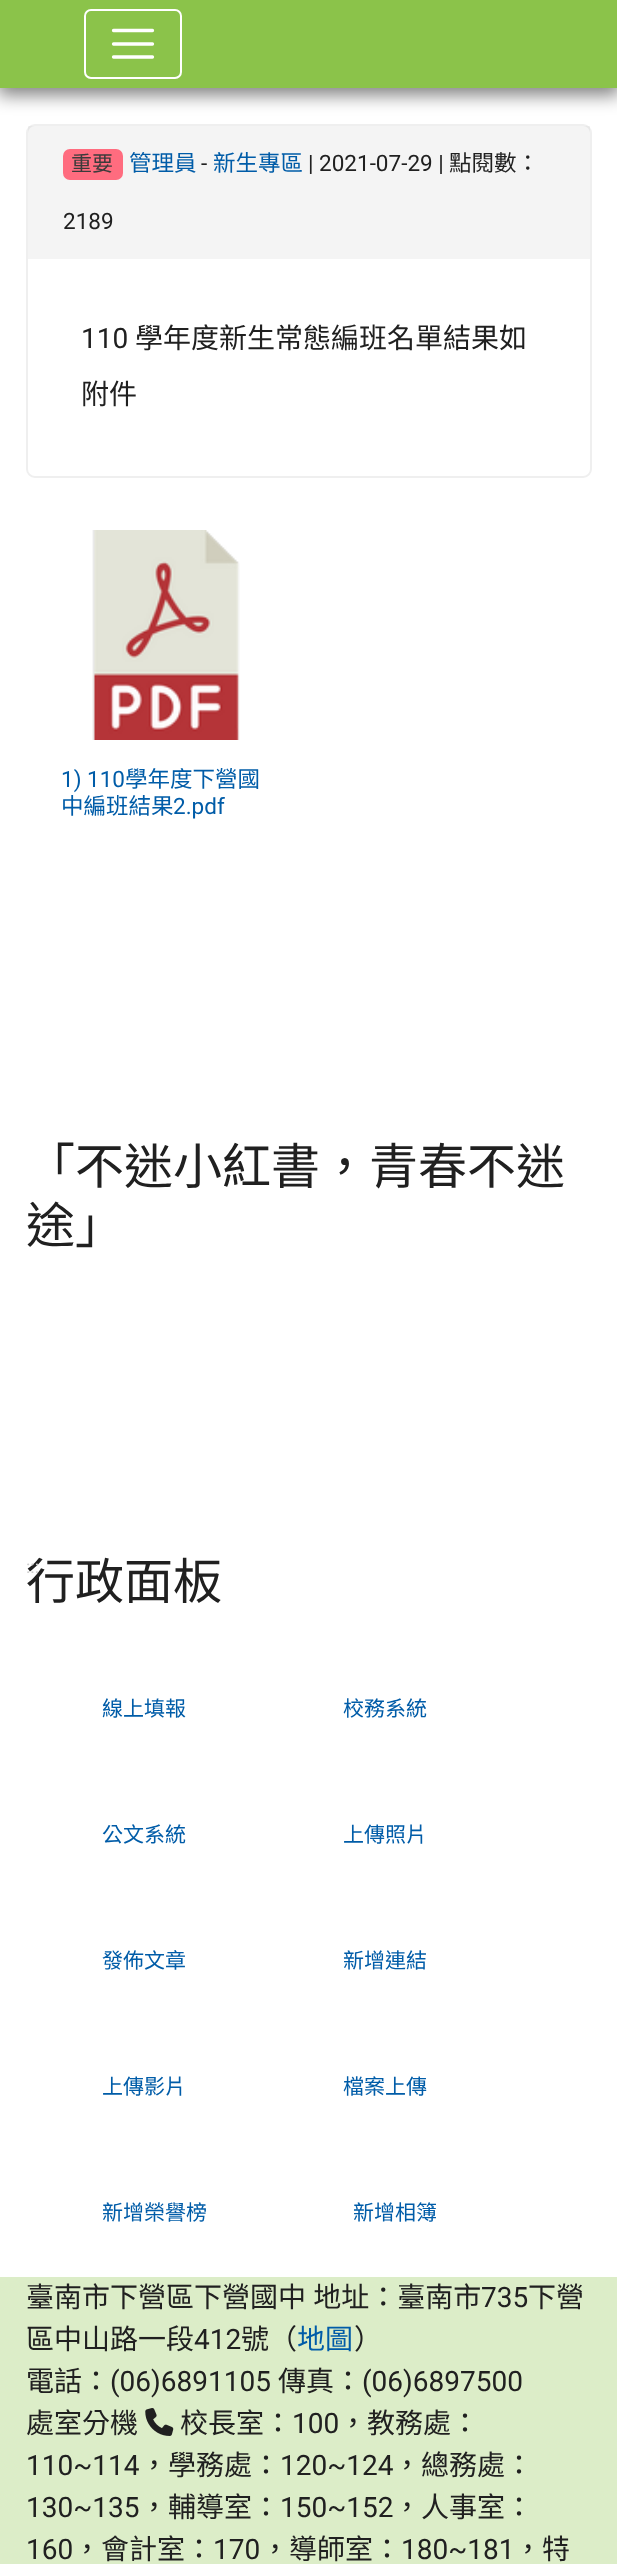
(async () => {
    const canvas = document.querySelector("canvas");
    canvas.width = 617;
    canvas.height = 2564;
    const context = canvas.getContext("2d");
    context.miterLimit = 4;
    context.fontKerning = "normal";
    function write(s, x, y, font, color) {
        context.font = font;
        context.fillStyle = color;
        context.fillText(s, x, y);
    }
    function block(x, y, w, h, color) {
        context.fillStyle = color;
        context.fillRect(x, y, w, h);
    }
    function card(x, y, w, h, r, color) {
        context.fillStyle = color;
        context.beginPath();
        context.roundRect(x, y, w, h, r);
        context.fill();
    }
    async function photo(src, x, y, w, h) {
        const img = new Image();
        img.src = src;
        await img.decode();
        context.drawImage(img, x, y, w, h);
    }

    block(0, 0, 617, 2564, "rgb(220, 237, 200)");
    block(0, 88, 617, 2189, "rgb(255, 255, 255)");
    context.fillStyle = "rgba(0, 0, 0, 0.5)";
    context.filter = "blur(9px)";
    context.beginPath();
    context.rect(-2, 4, 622, 91);
    context.fill();
    context.filter = "none";
    block(0, 0, 617, 88, "rgb(139, 195, 74)");
    context.beginPath();
    context.roundRect(85, 10, 96, 68, 6);
    context.strokeStyle = "rgb(255, 255, 255)";
    context.lineWidth = 2;
    context.stroke();
    context.beginPath();
    context.moveTo(113.5, 30.5);
    context.lineTo(152.5, 30.5);
    context.moveTo(113.5, 44);
    context.lineTo(152.5, 44);
    context.moveTo(113.5, 57);
    context.lineTo(152.5, 57);
    context.lineWidth = 3.3;
    context.lineCap = "round";
    context.stroke();
    context.beginPath();
    context.roundRect(27, 125, 564, 352, 8);
    context.strokeStyle = "rgb(239, 239, 239)";
    context.lineWidth = 2;
    context.stroke();
    block(28, 126, 562, 133, "rgba(200, 200, 200, 0.2)");
    card(63, 149, 60, 31, 7, "rgb(255, 108, 127)");
    write("重要", 71, 171, "21px Noto Sans CJK TC", "rgb(59, 59, 59)");
    write("管理員", 129, 171, "22.5px Noto Sans CJK TC", "rgb(0, 92, 168)");
    write("-", 201, 171, "22.5px Roboto", "rgb(32, 32, 32)");
    write("新生專區", 213, 171, "22.5px Noto Sans CJK TC", "rgb(0, 92, 168)");
    write("| 2021-07-29 |", 308, 171, "22.5px Roboto", "rgb(32, 32, 32)");
    write("點閱數：", 449, 171, "22.5px Noto Sans CJK TC", "rgb(32, 32, 32)");
    write("2189", 63, 229, "22.5px Roboto", "rgb(32, 32, 32)");
    write("110", 81, 348, "28px Roboto", "rgb(32, 32, 32)");
    write("學年度新生常態編班名單結果如", 135, 348, "28px Noto Sans CJK TC", "rgb(32, 32, 32)");
    write("附件", 81, 404, "28px Noto Sans CJK TC", "rgb(32, 32, 32)");
    await photo("media/1.png", 92, 530, 148, 210);
    write("1) 110", 61, 787, "22.5px Roboto", "rgb(0, 92, 168)");
    write("學年度下營國", 125, 787, "22.5px Noto Sans CJK TC", "rgb(0, 92, 168)");
    write("中編班結果", 61, 814, "22.5px Noto Sans CJK TC", "rgb(0, 92, 168)");
    write("2.pdf", 173, 814, "22.5px Roboto", "rgb(0, 92, 168)");
    write("「不迷小紅書，青春不迷", 26, 1184, "49px Noto Sans CJK TC", "rgb(32, 32, 32)");
    write("途」", 26, 1243, "49px Noto Sans CJK TC", "rgb(32, 32, 32)");
    write("行政面板", 26, 1599, "49px Noto Sans CJK TC", "rgb(32, 32, 32)");
    write("線上填報", 102, 1716, "21px Noto Sans CJK TC", "rgb(0, 92, 168)");
    write("校務系統", 343, 1716, "21px Noto Sans CJK TC", "rgb(0, 92, 168)");
    write("公文系統", 102, 1842, "21px Noto Sans CJK TC", "rgb(0, 92, 168)");
    write("上傳照片", 343, 1842, "21px Noto Sans CJK TC", "rgb(0, 92, 168)");
    write("發佈文章", 102, 1968, "21px Noto Sans CJK TC", "rgb(0, 92, 168)");
    write("新增連結", 343, 1968, "21px Noto Sans CJK TC", "rgb(0, 92, 168)");
    write("上傳影片", 102, 2094, "21px Noto Sans CJK TC", "rgb(0, 92, 168)");
    write("檔案上傳", 343, 2094, "21px Noto Sans CJK TC", "rgb(0, 92, 168)");
    write("新增榮譽榜", 102, 2220, "21px Noto Sans CJK TC", "rgb(0, 92, 168)");
    write("新增相簿", 353, 2220, "21px Noto Sans CJK TC", "rgb(0, 92, 168)");
    write(":::", 26, 1573, "18px Roboto", "rgb(207, 207, 207)");
    context.wordSpacing = "1px";
    write("臺南市下營區下營國中 地址：臺南市", 26, 2307, "28px Noto Sans CJK TC", "rgb(32, 32, 32)");
    context.wordSpacing = "0px";
    write("735", 481, 2307, "28px Roboto", "rgb(32, 32, 32)");
    write("下營", 528, 2307, "28px Noto Sans CJK TC", "rgb(32, 32, 32)");
    write("區中山路一段", 26, 2349, "28px Noto Sans CJK TC", "rgb(32, 32, 32)");
    write("412", 194, 2349, "28px Roboto", "rgb(32, 32, 32)");
    write("號（", 241, 2349, "28px Noto Sans CJK TC", "rgb(32, 32, 32)");
    write("地圖", 297, 2349, "28px Noto Sans CJK TC", "rgb(0, 92, 168)");
    write("）", 354, 2349, "28px Noto Sans CJK TC", "rgb(32, 32, 32)");
    write("電話：", 26, 2391, "28px Noto Sans CJK TC", "rgb(32, 32, 32)");
    write("(06)6891105", 110, 2391, "28px Roboto", "rgb(32, 32, 32)");
    write("傳真：", 278, 2391, "28px Noto Sans CJK TC", "rgb(32, 32, 32)");
    write("(06)6897500", 362, 2391, "28px Roboto", "rgb(32, 32, 32)");
    write("處室分機", 26, 2433, "28px Noto Sans CJK TC", "rgb(32, 32, 32)");
    await photo("media/2.png", 145, 2408, 29, 28);
    write("校長室：", 180, 2433, "28px Noto Sans CJK TC", "rgb(32, 32, 32)");
    write("100", 292, 2433, "28px Roboto", "rgb(32, 32, 32)");
    write("，教務處：", 339, 2433, "28px Noto Sans CJK TC", "rgb(32, 32, 32)");
    write("110~114", 26, 2475, "28px Roboto", "rgb(32, 32, 32)");
    write("，學務處：", 140, 2475, "28px Noto Sans CJK TC", "rgb(32, 32, 32)");
    write("120~124", 280, 2475, "28px Roboto", "rgb(32, 32, 32)");
    write("，總務處：", 393, 2475, "28px Noto Sans CJK TC", "rgb(32, 32, 32)");
    write("130~135", 26, 2517, "28px Roboto", "rgb(32, 32, 32)");
    write("，輔導室：", 140, 2517, "28px Noto Sans CJK TC", "rgb(32, 32, 32)");
    write("150~152", 280, 2517, "28px Roboto", "rgb(32, 32, 32)");
    write("，人事室：", 393, 2517, "28px Noto Sans CJK TC", "rgb(32, 32, 32)");
    write("160", 26, 2559, "28px Roboto", "rgb(32, 32, 32)");
    write("，會計室：", 73, 2559, "28px Noto Sans CJK TC", "rgb(32, 32, 32)");
    write("170", 213, 2559, "28px Roboto", "rgb(32, 32, 32)");
    write("，導師室：", 261, 2559, "28px Noto Sans CJK TC", "rgb(32, 32, 32)");
    write("180~181", 401, 2559, "28px Roboto", "rgb(32, 32, 32)");
    write("，特", 514, 2559, "28px Noto Sans CJK TC", "rgb(32, 32, 32)");
})();
